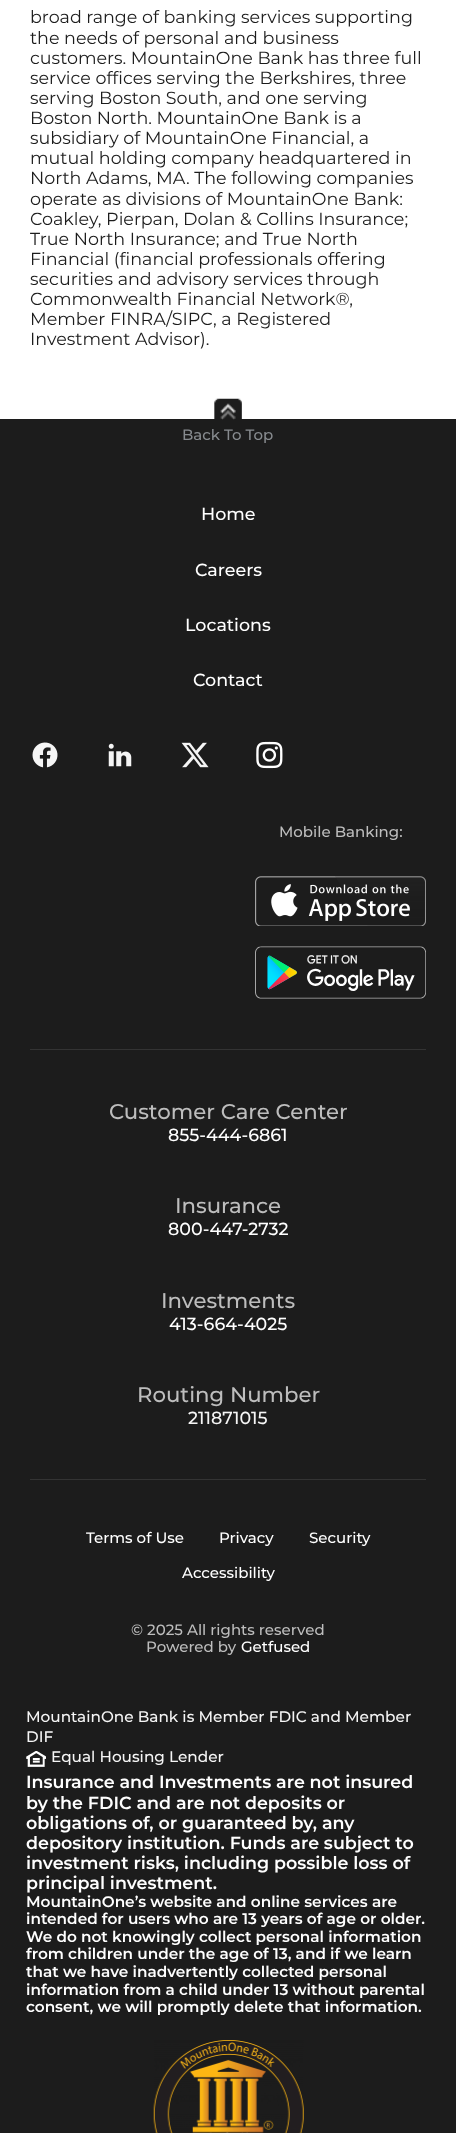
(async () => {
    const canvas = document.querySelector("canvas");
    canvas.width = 456;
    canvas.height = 2133;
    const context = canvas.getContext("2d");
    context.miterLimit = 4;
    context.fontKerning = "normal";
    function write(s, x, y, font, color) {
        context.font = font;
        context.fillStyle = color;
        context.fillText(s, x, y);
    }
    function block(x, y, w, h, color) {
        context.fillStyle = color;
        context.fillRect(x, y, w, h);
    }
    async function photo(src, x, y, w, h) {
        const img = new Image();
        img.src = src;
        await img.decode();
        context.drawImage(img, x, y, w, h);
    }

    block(0, 0, 456, 2133, "rgb(255, 255, 255)");
    write("broad range of banking services supporting", 30, 23, "17.5px Montserrat", "rgb(28, 28, 28)");
    write("the needs of personal and business", 30, 44, "17.5px Montserrat", "rgb(28, 28, 28)");
    write("customers. MountainOne Bank has three full", 30, 64, "17.5px Montserrat", "rgb(28, 28, 28)");
    write("service offices serving the Berkshires, three", 30, 84, "17.5px Montserrat", "rgb(28, 28, 28)");
    write("serving Boston South, and one serving", 30, 104, "17.5px Montserrat", "rgb(28, 28, 28)");
    write("Boston North. MountainOne Bank is a", 30, 124, "17.5px Montserrat", "rgb(28, 28, 28)");
    write("subsidiary of MountainOne Financial, a", 30, 144, "17.5px Montserrat", "rgb(28, 28, 28)");
    write("mutual holding company headquartered in", 30, 164, "17.5px Montserrat", "rgb(28, 28, 28)");
    write("North Adams, MA. The following companies", 30, 184, "17.5px Montserrat", "rgb(28, 28, 28)");
    write("operate as divisions of MountainOne Bank:", 30, 205, "17.5px Montserrat", "rgb(28, 28, 28)");
    write("Coakley, Pierpan, Dolan & Collins Insurance;", 30, 225, "17.5px Montserrat", "rgb(28, 28, 28)");
    write("True North Insurance; and True North", 30, 245, "17.5px Montserrat", "rgb(28, 28, 28)");
    write("Financial (financial professionals offering", 30, 265, "17.5px Montserrat", "rgb(28, 28, 28)");
    write("securities and advisory services through", 30, 285, "17.5px Montserrat", "rgb(28, 28, 28)");
    write("Commonwealth Financial Network®,", 30, 305, "17.5px Montserrat", "rgb(28, 28, 28)");
    write("Member FINRA/SIPC, a Registered", 30, 325, "17.5px Montserrat", "rgb(28, 28, 28)");
    write("Investment Advisor).", 30, 345, "17.5px Montserrat", "rgb(28, 28, 28)");
    block(0, 419, 456, 1714, "rgb(28, 28, 28)");
    await photo("media/1.png", 214, 398, 28, 22);
    write("Back To Top", 182, 440, "500 15px Montserrat", "rgb(135, 139, 143)");
    write("Home", 201, 520, "500 17.5px Montserrat", "rgb(255, 255, 255)");
    write("Careers", 195, 576, "500 17.5px Montserrat", "rgb(255, 255, 255)");
    write("Locations", 185, 631, "500 17.5px Montserrat", "rgb(255, 255, 255)");
    write("Contact", 193, 686, "500 17.5px Montserrat", "rgb(255, 255, 255)");
    await photo("media/2.png", 32, 742, 26, 26);
    await photo("media/3.png", 108, 743, 24, 24);
    await photo("media/4.png", 181, 742, 28, 26);
    await photo("media/5.png", 256, 741, 27, 28);
    write("Mobile Banking:", 279, 837, "500 15px Montserrat", "rgb(189, 189, 189)");
    await photo("media/6.png", 255, 876, 171, 50);
    await photo("media/7.png", 255, 946, 171, 53);
    block(30, 1049, 396, 1, "rgb(51, 51, 51)");
    write("Customer Care Center", 109, 1119, "500 21.25px Montserrat", "rgb(189, 189, 189)");
    write("855-444-6861", 168, 1141, "500 17.5px Montserrat", "rgb(255, 255, 255)");
    write("Insurance", 175, 1213, "500 21.25px Montserrat", "rgb(189, 189, 189)");
    write("800-447-2732", 168, 1235, "500 17.5px Montserrat", "rgb(255, 255, 255)");
    write("Investments", 161, 1308, "500 21.25px Montserrat", "rgb(189, 189, 189)");
    write("413-664-4025", 169, 1330, "500 17.5px Montserrat", "rgb(255, 255, 255)");
    write("Routing Number", 137, 1402, "500 21.25px Montserrat", "rgb(189, 189, 189)");
    write("211871015", 188, 1424, "500 17.5px Montserrat", "rgb(245, 245, 245)");
    block(30, 1479, 396, 1, "rgb(51, 51, 51)");
    write("Terms of Use", 86, 1543, "500 15px Montserrat", "rgb(255, 255, 255)");
    write("Privacy", 219, 1543, "500 15px Montserrat", "rgb(255, 255, 255)");
    write("Security", 309, 1543, "500 15px Montserrat", "rgb(255, 255, 255)");
    write("Accessibility", 182, 1578, "500 15px Montserrat", "rgb(255, 255, 255)");
    write("© 2025 All rights reserved", 131, 1635, "500 15px Montserrat", "rgb(189, 189, 189)");
    write("Powered by", 146, 1652, "500 15px Montserrat", "rgb(189, 189, 189)");
    write("Getfused", 241, 1652, "500 15px Montserrat", "rgb(255, 255, 255)");
    write("MountainOne Bank is Member FDIC and Member", 26, 1722, "500 15.3px Montserrat", "rgb(245, 245, 245)");
    write("DIF", 26, 1742, "500 15.3px Montserrat", "rgb(245, 245, 245)");
    await photo("media/8.png", 26, 1751, 20, 16);
    write("Equal Housing Lender", 51, 1762, "500 15.3px Montserrat", "rgb(245, 245, 245)");
    write("Insurance and Investments are not insured", 26, 1788, "600 17.5px Montserrat", "rgb(255, 255, 255)");
    write("by the FDIC and are not deposits or", 26, 1809, "600 17.5px Montserrat", "rgb(255, 255, 255)");
    write("obligations of, or guaranteed by, any", 26, 1829, "600 17.5px Montserrat", "rgb(255, 255, 255)");
    write("depository institution. Funds are subject to", 26, 1849, "600 17.5px Montserrat", "rgb(255, 255, 255)");
    write("investment risks, including possible loss of", 26, 1869, "600 17.5px Montserrat", "rgb(255, 255, 255)");
    write("principal investment.", 26, 1889, "600 17.5px Montserrat", "rgb(255, 255, 255)");
    write("MountainOne’s website and online services are", 26, 1907, "600 15.3px Montserrat", "rgb(255, 255, 255)");
    write("intended for users who are 13 years of age or older.", 26, 1924, "600 15.3px Montserrat", "rgb(255, 255, 255)");
    write("We do not knowingly collect personal information", 26, 1942, "600 15.3px Montserrat", "rgb(255, 255, 255)");
    write("from children under the age of 13, and if we learn", 26, 1959, "600 15.3px Montserrat", "rgb(255, 255, 255)");
    write("that we have inadvertently collected personal", 26, 1977, "600 15.3px Montserrat", "rgb(255, 255, 255)");
    write("information from a child under 13 without parental", 26, 1995, "600 15.3px Montserrat", "rgb(255, 255, 255)");
    write("consent, we will promptly delete that information.", 26, 2012, "600 15.3px Montserrat", "rgb(255, 255, 255)");
    await photo("media/9.png", 153, 2040, 151, 93);
})();
